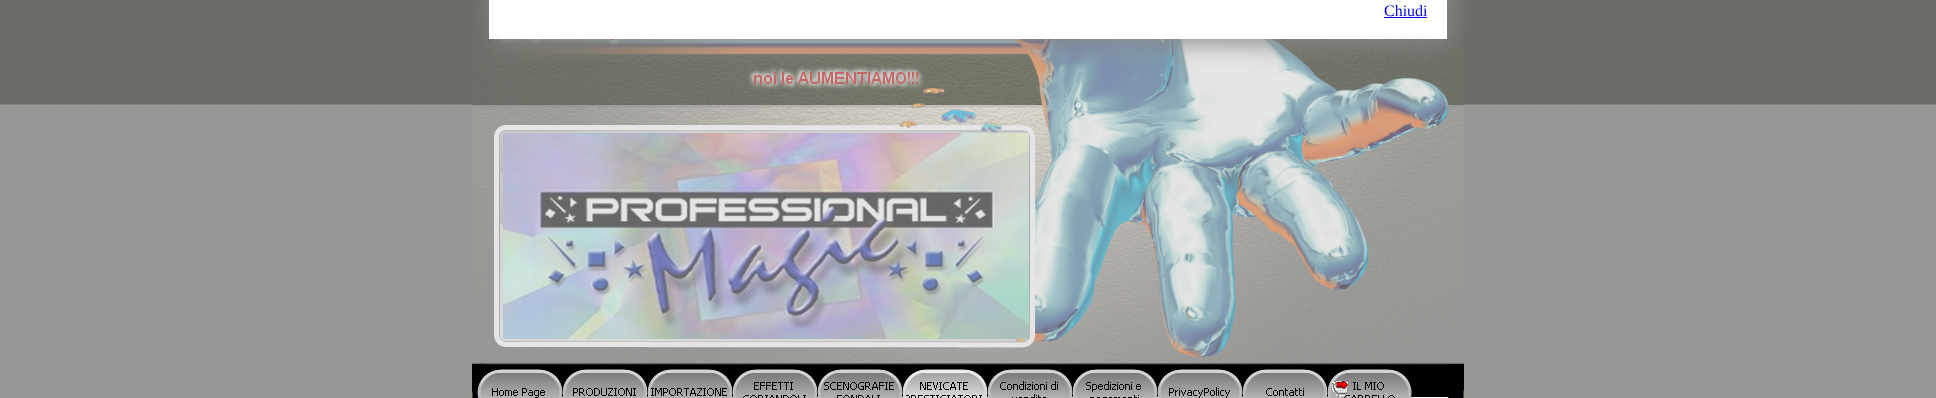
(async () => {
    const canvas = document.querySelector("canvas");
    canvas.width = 1936;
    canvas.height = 398;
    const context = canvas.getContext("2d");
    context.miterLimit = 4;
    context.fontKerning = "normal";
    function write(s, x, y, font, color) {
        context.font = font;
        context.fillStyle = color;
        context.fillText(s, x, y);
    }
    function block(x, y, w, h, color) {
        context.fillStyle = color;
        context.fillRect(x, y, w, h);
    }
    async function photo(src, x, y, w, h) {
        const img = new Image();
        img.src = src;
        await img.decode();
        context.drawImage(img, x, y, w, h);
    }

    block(0, 0, 1936, 398, "rgb(255, 255, 255)");
    await photo("media/1.png", 0, 0, 1936, 398);
    await photo("media/2.png", 472, 0, 992, 364);
    await photo("media/3.png", 472, 364, 992, 34);
    await photo("media/4.png", 477, 369, 85, 29);
    await photo("media/5.png", 562, 369, 85, 29);
    await photo("media/6.png", 647, 369, 85, 29);
    await photo("media/7.png", 732, 369, 85, 29);
    await photo("media/8.png", 817, 369, 85, 29);
    await photo("media/9.png", 902, 369, 85, 29);
    await photo("media/10.png", 987, 369, 85, 29);
    await photo("media/11.png", 1072, 369, 85, 29);
    await photo("media/12.png", 1157, 369, 85, 29);
    await photo("media/13.png", 1242, 369, 85, 29);
    await photo("media/14.png", 1327, 369, 85, 29);
    context.fillStyle = "rgb(136, 136, 136)";
    context.filter = "blur(12.5px)";
    context.beginPath();
    context.rect(493, -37, 958, 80);
    context.fill();
    context.filter = "none";
    block(489, 0, 958, 39, "rgb(255, 255, 255)");
    write("Chiudi", 1384, 16, "16px Liberation Serif", "rgb(0, 0, 238)");
    block(1384, 17, 43, 1, "rgb(0, 0, 238)");
})();
